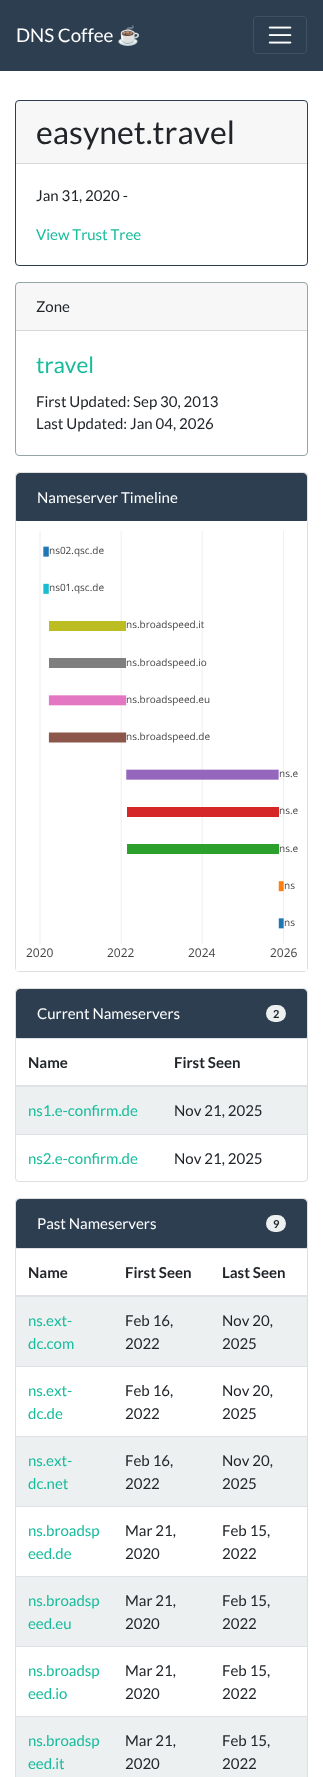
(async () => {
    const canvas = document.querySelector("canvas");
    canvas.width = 323;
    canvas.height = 1777;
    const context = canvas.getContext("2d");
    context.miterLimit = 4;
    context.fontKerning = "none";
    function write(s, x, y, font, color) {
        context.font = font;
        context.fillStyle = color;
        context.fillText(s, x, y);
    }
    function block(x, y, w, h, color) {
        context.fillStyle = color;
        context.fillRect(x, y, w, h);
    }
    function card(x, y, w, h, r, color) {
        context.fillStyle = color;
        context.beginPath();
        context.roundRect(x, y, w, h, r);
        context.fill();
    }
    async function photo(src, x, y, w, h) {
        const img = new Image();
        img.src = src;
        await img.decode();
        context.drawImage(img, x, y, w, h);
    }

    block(0, 0, 323, 1777, "rgb(255, 255, 255)");
    block(0, 0, 323, 71, "rgb(44, 62, 80)");
    write("DNS Coffee", 16, 42, "18.75px Lato", "rgb(255, 255, 255)");
    write("☕", 117, 42, "18.75px Noto Color Emoji", "rgb(255, 255, 255)");
    context.beginPath();
    context.roundRect(253.5, 16.5, 53, 37, 3.5);
    context.strokeStyle = "rgb(65, 81, 98)";
    context.stroke();
    await photo("media/1.png", 268, 26, 24, 18);
    context.beginPath();
    context.roundRect(15.5, 100.5, 292, 165, 3.5);
    context.strokeStyle = "rgb(44, 62, 80)";
    context.stroke();
    block(16, 101, 291, 62, "rgba(0, 0, 0, 0.03)");
    block(16, 163, 291, 1, "rgb(216, 216, 216)");
    write("easynet.travel", 36, 144, "32px Lato", "rgb(33, 37, 41)");
    write("Jan 31, 2020 -", 36, 201, "15px Lato", "rgb(33, 37, 41)");
    write("View Trust Tree", 36, 240, "15px Lato", "rgb(24, 188, 156)");
    context.beginPath();
    context.roundRect(15.5, 282.5, 292, 173, 3.5);
    context.strokeStyle = "rgb(149, 165, 166)";
    context.stroke();
    block(16, 283, 291, 47, "rgba(0, 0, 0, 0.03)");
    block(16, 330, 291, 1, "rgb(216, 216, 216)");
    write("Zone", 36, 312, "15px Lato", "rgb(33, 37, 41)");
    write("travel", 36, 373, "22.5px Lato", "rgb(24, 188, 156)");
    write("First Updated: Sep 30, 2013", 36, 407, "15px Lato", "rgb(33, 37, 41)");
    write("Last Updated: Jan 04, 2026", 36, 429, "15px Lato", "rgb(33, 37, 41)");
    context.beginPath();
    context.roundRect(15.5, 472.5, 292, 499, 3.5);
    context.strokeStyle = "rgb(223, 223, 223)";
    context.stroke();
    context.fillStyle = "rgb(44, 62, 80)";
    context.beginPath();
    context.roundRect(16.5, 473.5, 290, 47, [3.5, 3.5, 0, 0]);
    context.fill();
    context.strokeStyle = "rgb(44, 62, 80)";
    context.stroke();
    write("Nameserver Timeline", 37, 503, "15px Lato", "rgb(255, 255, 255)");
    block(16, 968, 291, 3, "rgb(255, 255, 255)");
    await photo("media/2.png", 39, 531, 245, 413);
    write("ns02.qsc.de", 49, 554, "10px Open Sans", "rgb(68, 68, 68)");
    write("ns01.qsc.de", 49, 591, "10px Open Sans", "rgb(68, 68, 68)");
    write("ns.broadspeed.it", 126, 628, "10px Open Sans", "rgb(68, 68, 68)");
    write("ns.broadspeed.io", 126, 666, "10px Open Sans", "rgb(68, 68, 68)");
    write("ns.broadspeed.eu", 126, 703, "10px Open Sans", "rgb(68, 68, 68)");
    write("ns.broadspeed.de", 126, 740, "10px Open Sans", "rgb(68, 68, 68)");
    write("ns.e", 279, 777, "10px Open Sans", "rgb(68, 68, 68)");
    write("ns.e", 279, 814, "10px Open Sans", "rgb(68, 68, 68)");
    write("ns.e", 279, 852, "10px Open Sans", "rgb(68, 68, 68)");
    write("ns", 284, 889, "10px Open Sans", "rgb(68, 68, 68)");
    write("ns", 284, 926, "10px Open Sans", "rgb(68, 68, 68)");
    write("2020", 26, 957, "12px Open Sans", "rgb(68, 68, 68)");
    write("2022", 107, 957, "12px Open Sans", "rgb(68, 68, 68)");
    write("2024", 188, 957, "12px Open Sans", "rgb(68, 68, 68)");
    write("2026", 270, 957, "12px Open Sans", "rgb(68, 68, 68)");
    context.beginPath();
    context.roundRect(15.5, 988.5, 292, 193, 3.5);
    context.strokeStyle = "rgb(223, 223, 223)";
    context.stroke();
    context.fillStyle = "rgb(44, 62, 80)";
    context.beginPath();
    context.roundRect(16.5, 989.5, 290, 48, [3.5, 3.5, 0, 0]);
    context.fill();
    context.strokeStyle = "rgb(44, 62, 80)";
    context.stroke();
    write("Current Nameservers", 37, 1019, "15px Lato", "rgb(255, 255, 255)");
    card(266, 1005, 20, 17, 8.5, "rgb(236, 240, 241)");
    write("2", 273, 1018, "bold 11px Lato", "rgb(33, 37, 41)");
    write("Name", 28, 1068, "bold 15px Lato", "rgb(33, 37, 41)");
    block(16, 1038, 292, 1, "rgb(222, 226, 230)");
    block(15, 1085, 293, 2, "rgb(222, 226, 230)");
    write("First Seen", 174, 1068, "bold 15px Lato", "rgb(33, 37, 41)");
    block(16, 1087, 291, 47, "rgb(236, 240, 241)");
    write("ns1.e-confirm.de", 28, 1116, "15px Lato", "rgb(24, 188, 156)");
    write("Nov 21, 2025", 174, 1116, "15px Lato", "rgb(33, 37, 41)");
    write("ns2.e-confirm.de", 28, 1164, "15px Lato", "rgb(24, 188, 156)");
    block(16, 1134, 292, 1, "rgb(222, 226, 230)");
    write("Nov 21, 2025", 174, 1164, "15px Lato", "rgb(33, 37, 41)");
    context.beginPath();
    context.roundRect(15.5, 1198.5, 292, 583, 3.5);
    context.strokeStyle = "rgb(223, 223, 223)";
    context.stroke();
    context.fillStyle = "rgb(44, 62, 80)";
    context.beginPath();
    context.roundRect(16.5, 1199.5, 290, 48, [3.5, 3.5, 0, 0]);
    context.fill();
    context.strokeStyle = "rgb(44, 62, 80)";
    context.stroke();
    write("Past Nameservers", 37, 1229, "15px Lato", "rgb(255, 255, 255)");
    card(266, 1215, 20, 17, 8.5, "rgb(236, 240, 241)");
    write("9", 273, 1228, "bold 11px Lato", "rgb(33, 37, 41)");
    write("Name", 28, 1278, "bold 15px Lato", "rgb(33, 37, 41)");
    write("First Seen", 125, 1278, "bold 15px Lato", "rgb(33, 37, 41)");
    block(16, 1248, 292, 1, "rgb(222, 226, 230)");
    block(15, 1295, 293, 2, "rgb(222, 226, 230)");
    write("Last Seen", 222, 1278, "bold 15px Lato", "rgb(33, 37, 41)");
    block(16, 1297, 291, 69, "rgb(236, 240, 241)");
    write("ns.ext-", 28, 1326, "15px Lato", "rgb(24, 188, 156)");
    write("dc.com", 28, 1349, "15px Lato", "rgb(24, 188, 156)");
    write("Feb 16,", 125, 1326, "15px Lato", "rgb(33, 37, 41)");
    write("2022", 125, 1349, "15px Lato", "rgb(33, 37, 41)");
    write("Nov 20,", 222, 1326, "15px Lato", "rgb(33, 37, 41)");
    write("2025", 222, 1349, "15px Lato", "rgb(33, 37, 41)");
    write("ns.ext-", 28, 1396, "15px Lato", "rgb(24, 188, 156)");
    write("dc.de", 28, 1419, "15px Lato", "rgb(24, 188, 156)");
    write("Feb 16,", 125, 1396, "15px Lato", "rgb(33, 37, 41)");
    write("2022", 125, 1419, "15px Lato", "rgb(33, 37, 41)");
    block(16, 1366, 292, 1, "rgb(222, 226, 230)");
    write("Nov 20,", 222, 1396, "15px Lato", "rgb(33, 37, 41)");
    write("2025", 222, 1419, "15px Lato", "rgb(33, 37, 41)");
    block(16, 1437, 291, 69, "rgb(236, 240, 241)");
    write("ns.ext-", 28, 1466, "15px Lato", "rgb(24, 188, 156)");
    write("dc.net", 28, 1489, "15px Lato", "rgb(24, 188, 156)");
    write("Feb 16,", 125, 1466, "15px Lato", "rgb(33, 37, 41)");
    write("2022", 125, 1489, "15px Lato", "rgb(33, 37, 41)");
    block(16, 1436, 292, 1, "rgb(222, 226, 230)");
    write("Nov 20,", 222, 1466, "15px Lato", "rgb(33, 37, 41)");
    write("2025", 222, 1489, "15px Lato", "rgb(33, 37, 41)");
    write("ns.broadsp", 28, 1536, "15px Lato", "rgb(24, 188, 156)");
    write("eed.de", 28, 1559, "15px Lato", "rgb(24, 188, 156)");
    write("Mar 21,", 125, 1536, "15px Lato", "rgb(33, 37, 41)");
    write("2020", 125, 1559, "15px Lato", "rgb(33, 37, 41)");
    block(16, 1506, 292, 1, "rgb(222, 226, 230)");
    write("Feb 15,", 222, 1536, "15px Lato", "rgb(33, 37, 41)");
    write("2022", 222, 1559, "15px Lato", "rgb(33, 37, 41)");
    block(16, 1577, 291, 69, "rgb(236, 240, 241)");
    write("ns.broadsp", 28, 1606, "15px Lato", "rgb(24, 188, 156)");
    write("eed.eu", 28, 1629, "15px Lato", "rgb(24, 188, 156)");
    write("Mar 21,", 125, 1606, "15px Lato", "rgb(33, 37, 41)");
    write("2020", 125, 1629, "15px Lato", "rgb(33, 37, 41)");
    block(16, 1576, 292, 1, "rgb(222, 226, 230)");
    write("Feb 15,", 222, 1606, "15px Lato", "rgb(33, 37, 41)");
    write("2022", 222, 1629, "15px Lato", "rgb(33, 37, 41)");
    write("ns.broadsp", 28, 1676, "15px Lato", "rgb(24, 188, 156)");
    write("eed.io", 28, 1699, "15px Lato", "rgb(24, 188, 156)");
    write("Mar 21,", 125, 1676, "15px Lato", "rgb(33, 37, 41)");
    write("2020", 125, 1699, "15px Lato", "rgb(33, 37, 41)");
    block(16, 1646, 292, 1, "rgb(222, 226, 230)");
    write("Feb 15,", 222, 1676, "15px Lato", "rgb(33, 37, 41)");
    write("2022", 222, 1699, "15px Lato", "rgb(33, 37, 41)");
    block(16, 1717, 291, 60, "rgb(236, 240, 241)");
    write("ns.broadsp", 28, 1746, "15px Lato", "rgb(24, 188, 156)");
    write("eed.it", 28, 1769, "15px Lato", "rgb(24, 188, 156)");
    write("Mar 21,", 125, 1746, "15px Lato", "rgb(33, 37, 41)");
    write("2020", 125, 1769, "15px Lato", "rgb(33, 37, 41)");
    block(16, 1716, 292, 1, "rgb(222, 226, 230)");
    write("Feb 15,", 222, 1746, "15px Lato", "rgb(33, 37, 41)");
    write("2022", 222, 1769, "15px Lato", "rgb(33, 37, 41)");
})();
